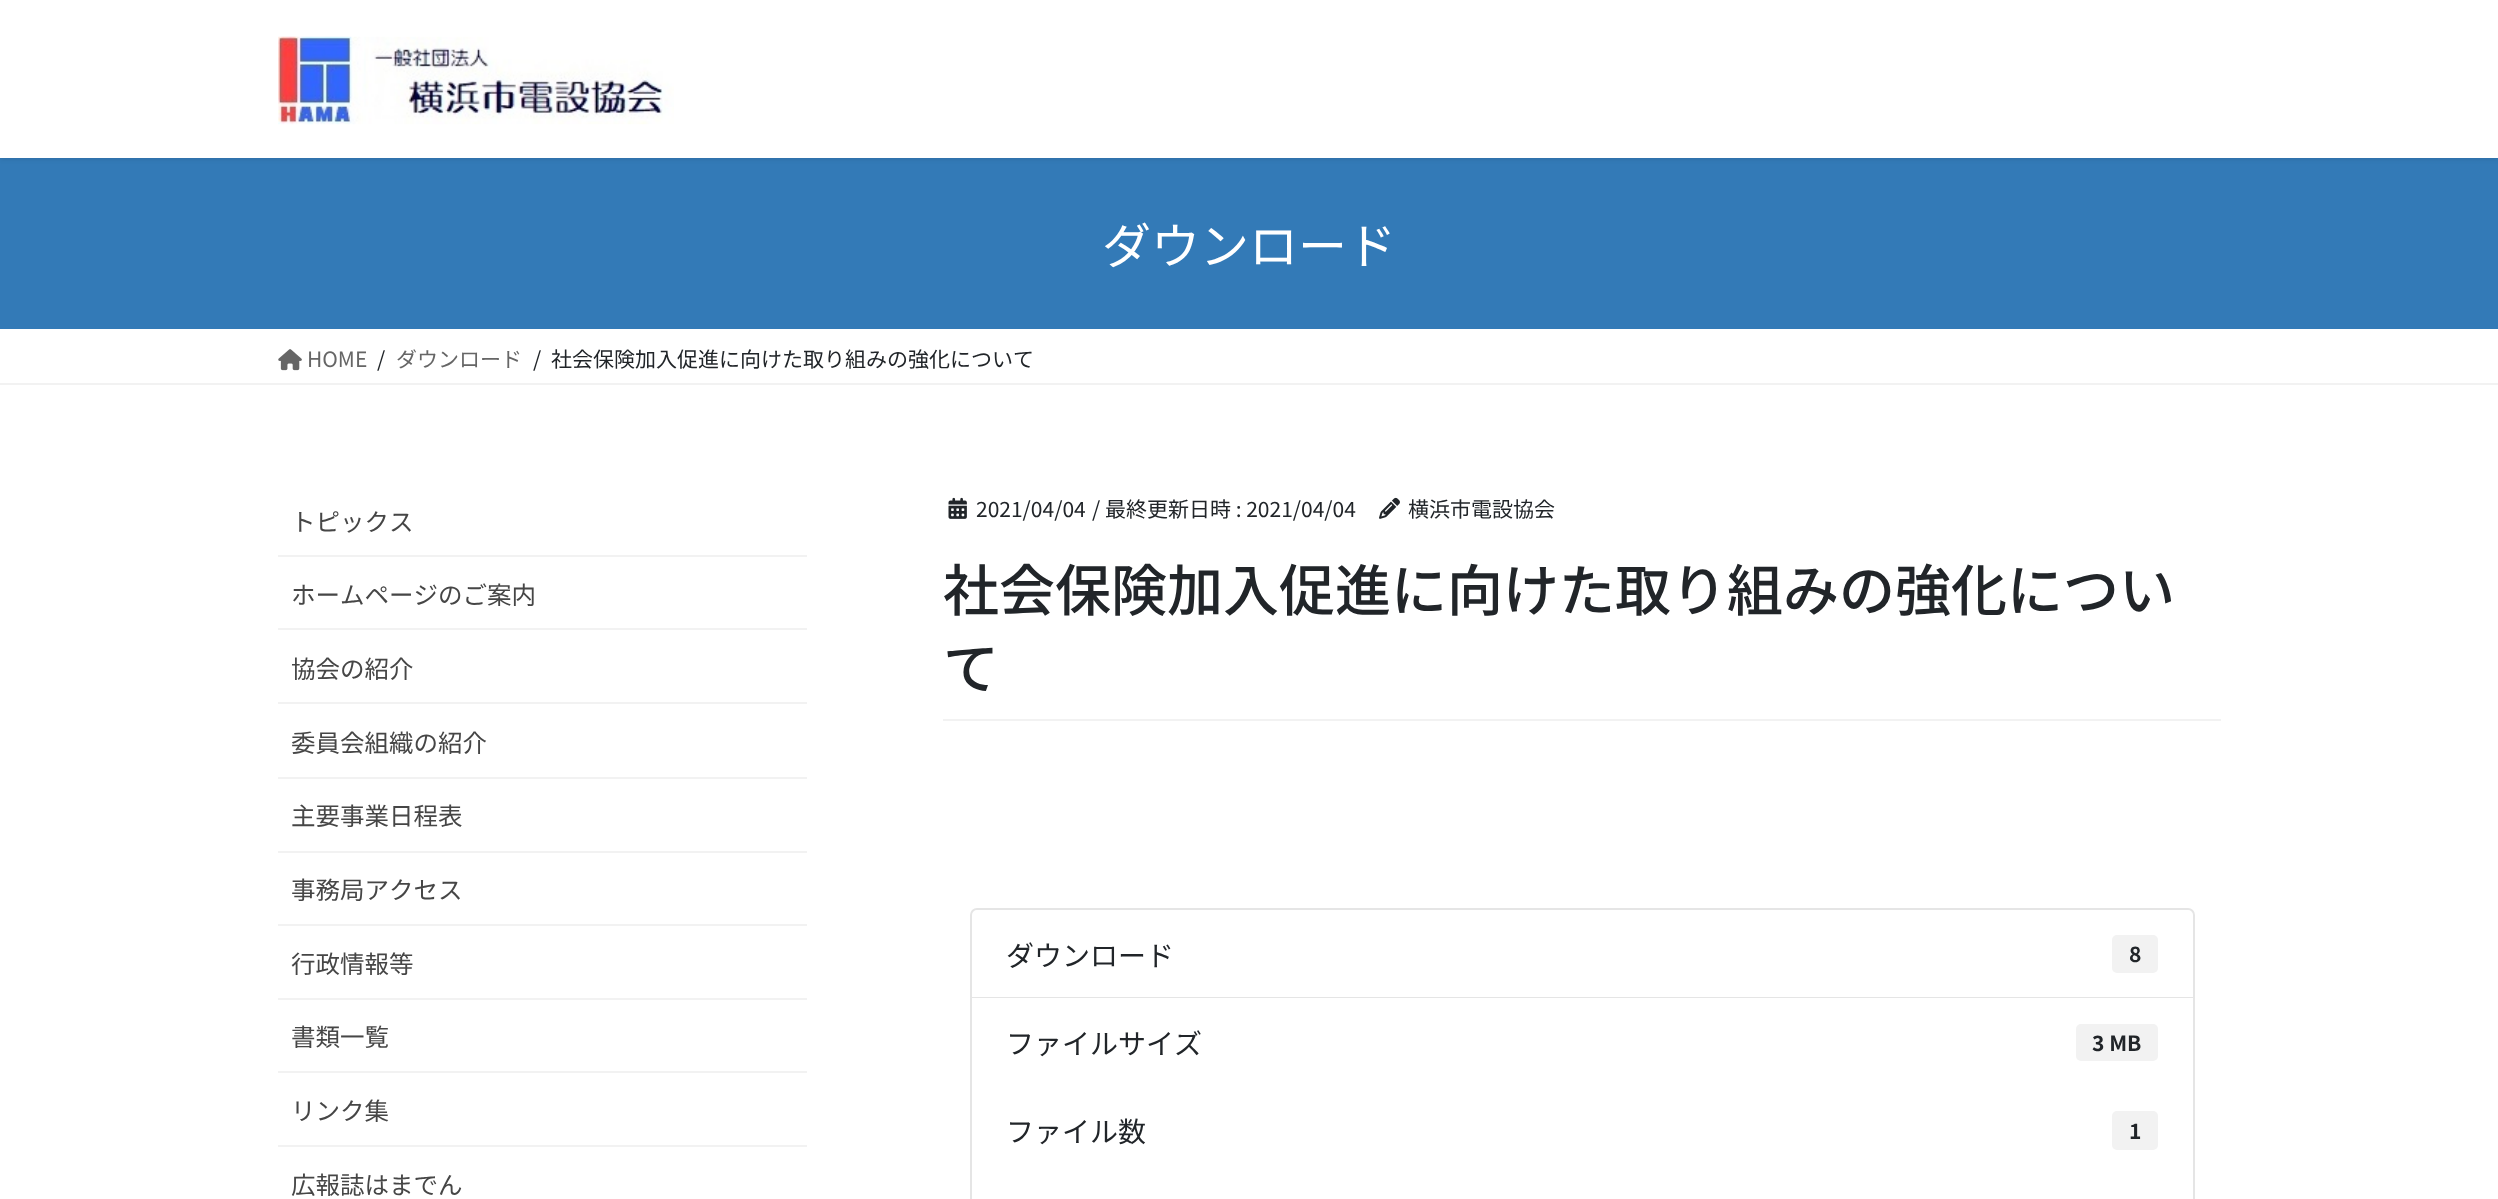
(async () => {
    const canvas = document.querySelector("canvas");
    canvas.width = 2498;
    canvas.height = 1199;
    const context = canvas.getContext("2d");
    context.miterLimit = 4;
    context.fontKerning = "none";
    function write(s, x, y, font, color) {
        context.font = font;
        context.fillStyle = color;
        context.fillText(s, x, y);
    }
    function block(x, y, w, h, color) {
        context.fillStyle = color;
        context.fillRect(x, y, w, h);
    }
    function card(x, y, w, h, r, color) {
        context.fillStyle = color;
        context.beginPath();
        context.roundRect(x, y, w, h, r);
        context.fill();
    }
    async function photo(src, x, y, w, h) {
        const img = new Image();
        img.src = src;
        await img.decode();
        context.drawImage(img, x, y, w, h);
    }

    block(0, 0, 2498, 1199, "rgb(255, 255, 255)");
    block(0, 158, 2498, 171, "rgb(51, 122, 183)");
    context.fillStyle = "rgba(0, 0, 0, 0.1)";
    context.filter = "blur(2.5px)";
    context.beginPath();
    context.rect(0, 2, 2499, 157);
    context.fill();
    context.filter = "none";
    block(0, 0, 2498, 158, "rgb(255, 255, 255)");
    await photo("media/1.png", 278, 36, 396, 89);
    write("ダウンロード", 1102, 264, "49px Noto Sans JP", "rgb(255, 255, 255)");
    block(0, 383, 2498, 2, "rgb(242, 242, 242)");
    await photo("media/2.png", 278, 349, 24, 22);
    write("HOME", 307, 367, "21px Noto Sans JP", "rgb(102, 102, 102)");
    write("/", 377, 367, "21px Noto Sans JP", "rgb(33, 37, 41)");
    write("ダウンロード", 396, 367, "21px Noto Sans JP", "rgb(102, 102, 102)");
    write("/", 533, 367, "21px Noto Sans JP", "rgb(33, 37, 41)");
    write("社会保険加入促進に向けた取り組みの強化について", 551, 367, "21px Noto Sans JP", "rgb(33, 37, 41)");
    block(278, 555, 529, 2, "rgb(242, 242, 242)");
    write("トピックス", 291, 531, "24.5px Noto Sans JP", "rgb(70, 70, 70)");
    block(278, 628, 529, 2, "rgb(242, 242, 242)");
    write("ホームページのご案内", 291, 604, "24.5px Noto Sans JP", "rgb(70, 70, 70)");
    block(278, 702, 529, 2, "rgb(242, 242, 242)");
    write("協会の紹介", 291, 678, "24.5px Noto Sans JP", "rgb(70, 70, 70)");
    block(278, 777, 529, 2, "rgb(242, 242, 242)");
    write("委員会組織の紹介", 291, 752, "24.5px Noto Sans JP", "rgb(70, 70, 70)");
    block(278, 851, 529, 2, "rgb(242, 242, 242)");
    write("主要事業日程表", 291, 825, "24.5px Noto Sans JP", "rgb(70, 70, 70)");
    block(278, 924, 529, 2, "rgb(242, 242, 242)");
    write("事務局アクセス", 291, 899, "24.5px Noto Sans JP", "rgb(70, 70, 70)");
    block(278, 998, 529, 2, "rgb(242, 242, 242)");
    write("行政情報等", 291, 973, "24.5px Noto Sans JP", "rgb(70, 70, 70)");
    block(278, 1071, 529, 2, "rgb(242, 242, 242)");
    write("書類一覧", 291, 1046, "24.5px Noto Sans JP", "rgb(70, 70, 70)");
    block(278, 1145, 529, 2, "rgb(242, 242, 242)");
    write("リンク集", 291, 1120, "24.5px Noto Sans JP", "rgb(70, 70, 70)");
    write("広報誌はまでん", 291, 1194, "24.5px Noto Sans JP", "rgb(70, 70, 70)");
    block(943, 719, 1278, 2, "rgb(242, 242, 242)");
    await photo("media/3.png", 948, 497, 19, 22);
    write("2021/04/04", 976, 517, "21px Noto Sans JP", "rgb(33, 37, 41)");
    write("/ 最終更新日時 : 2021/04/04", 1092, 517, "21px Noto Sans JP", "rgb(33, 37, 41)");
    await photo("media/4.png", 1379, 497, 21, 22);
    write("横浜市電設協会", 1408, 517, "21px Noto Sans JP", "rgb(33, 37, 41)");
    write("社会保険加入促進に向けた取り組みの強化につい", 943, 611, "500 56px Noto Sans JP", "rgb(33, 37, 41)");
    write("て", 943, 689, "500 56px Noto Sans JP", "rgb(33, 37, 41)");
    context.beginPath();
    context.roundRect(971, 909, 1223, 89, [6, 6, 0, 0]);
    context.strokeStyle = "rgb(229, 229, 229)";
    context.lineWidth = 2;
    context.stroke();
    write("ダウンロード", 1006, 966, "28px Noto Sans JP", "rgb(33, 37, 41)");
    card(2112, 935, 46, 38, 5, "rgb(242, 242, 242)");
    write("8", 2129, 962, "bold 21px Noto Sans JP", "rgb(33, 37, 41)");
    block(972, 998, 1221, 1, "rgb(255, 255, 255)");
    block(2193, 998, 2, 201, "rgb(229, 229, 229)");
    block(970, 998, 2, 201, "rgb(229, 229, 229)");
    write("ファイルサイズ", 1006, 1054, "28px Noto Sans JP", "rgb(33, 37, 41)");
    card(2076, 1024, 82, 37, 5, "rgb(242, 242, 242)");
    write("3 MB", 2092, 1051, "bold 21px Noto Sans JP", "rgb(33, 37, 41)");
    write("ファイル数", 1006, 1142, "28px Noto Sans JP", "rgb(33, 37, 41)");
    card(2112, 1111, 46, 39, 5, "rgb(242, 242, 242)");
    write("1", 2129, 1139, "bold 21px Noto Sans JP", "rgb(33, 37, 41)");
})();
